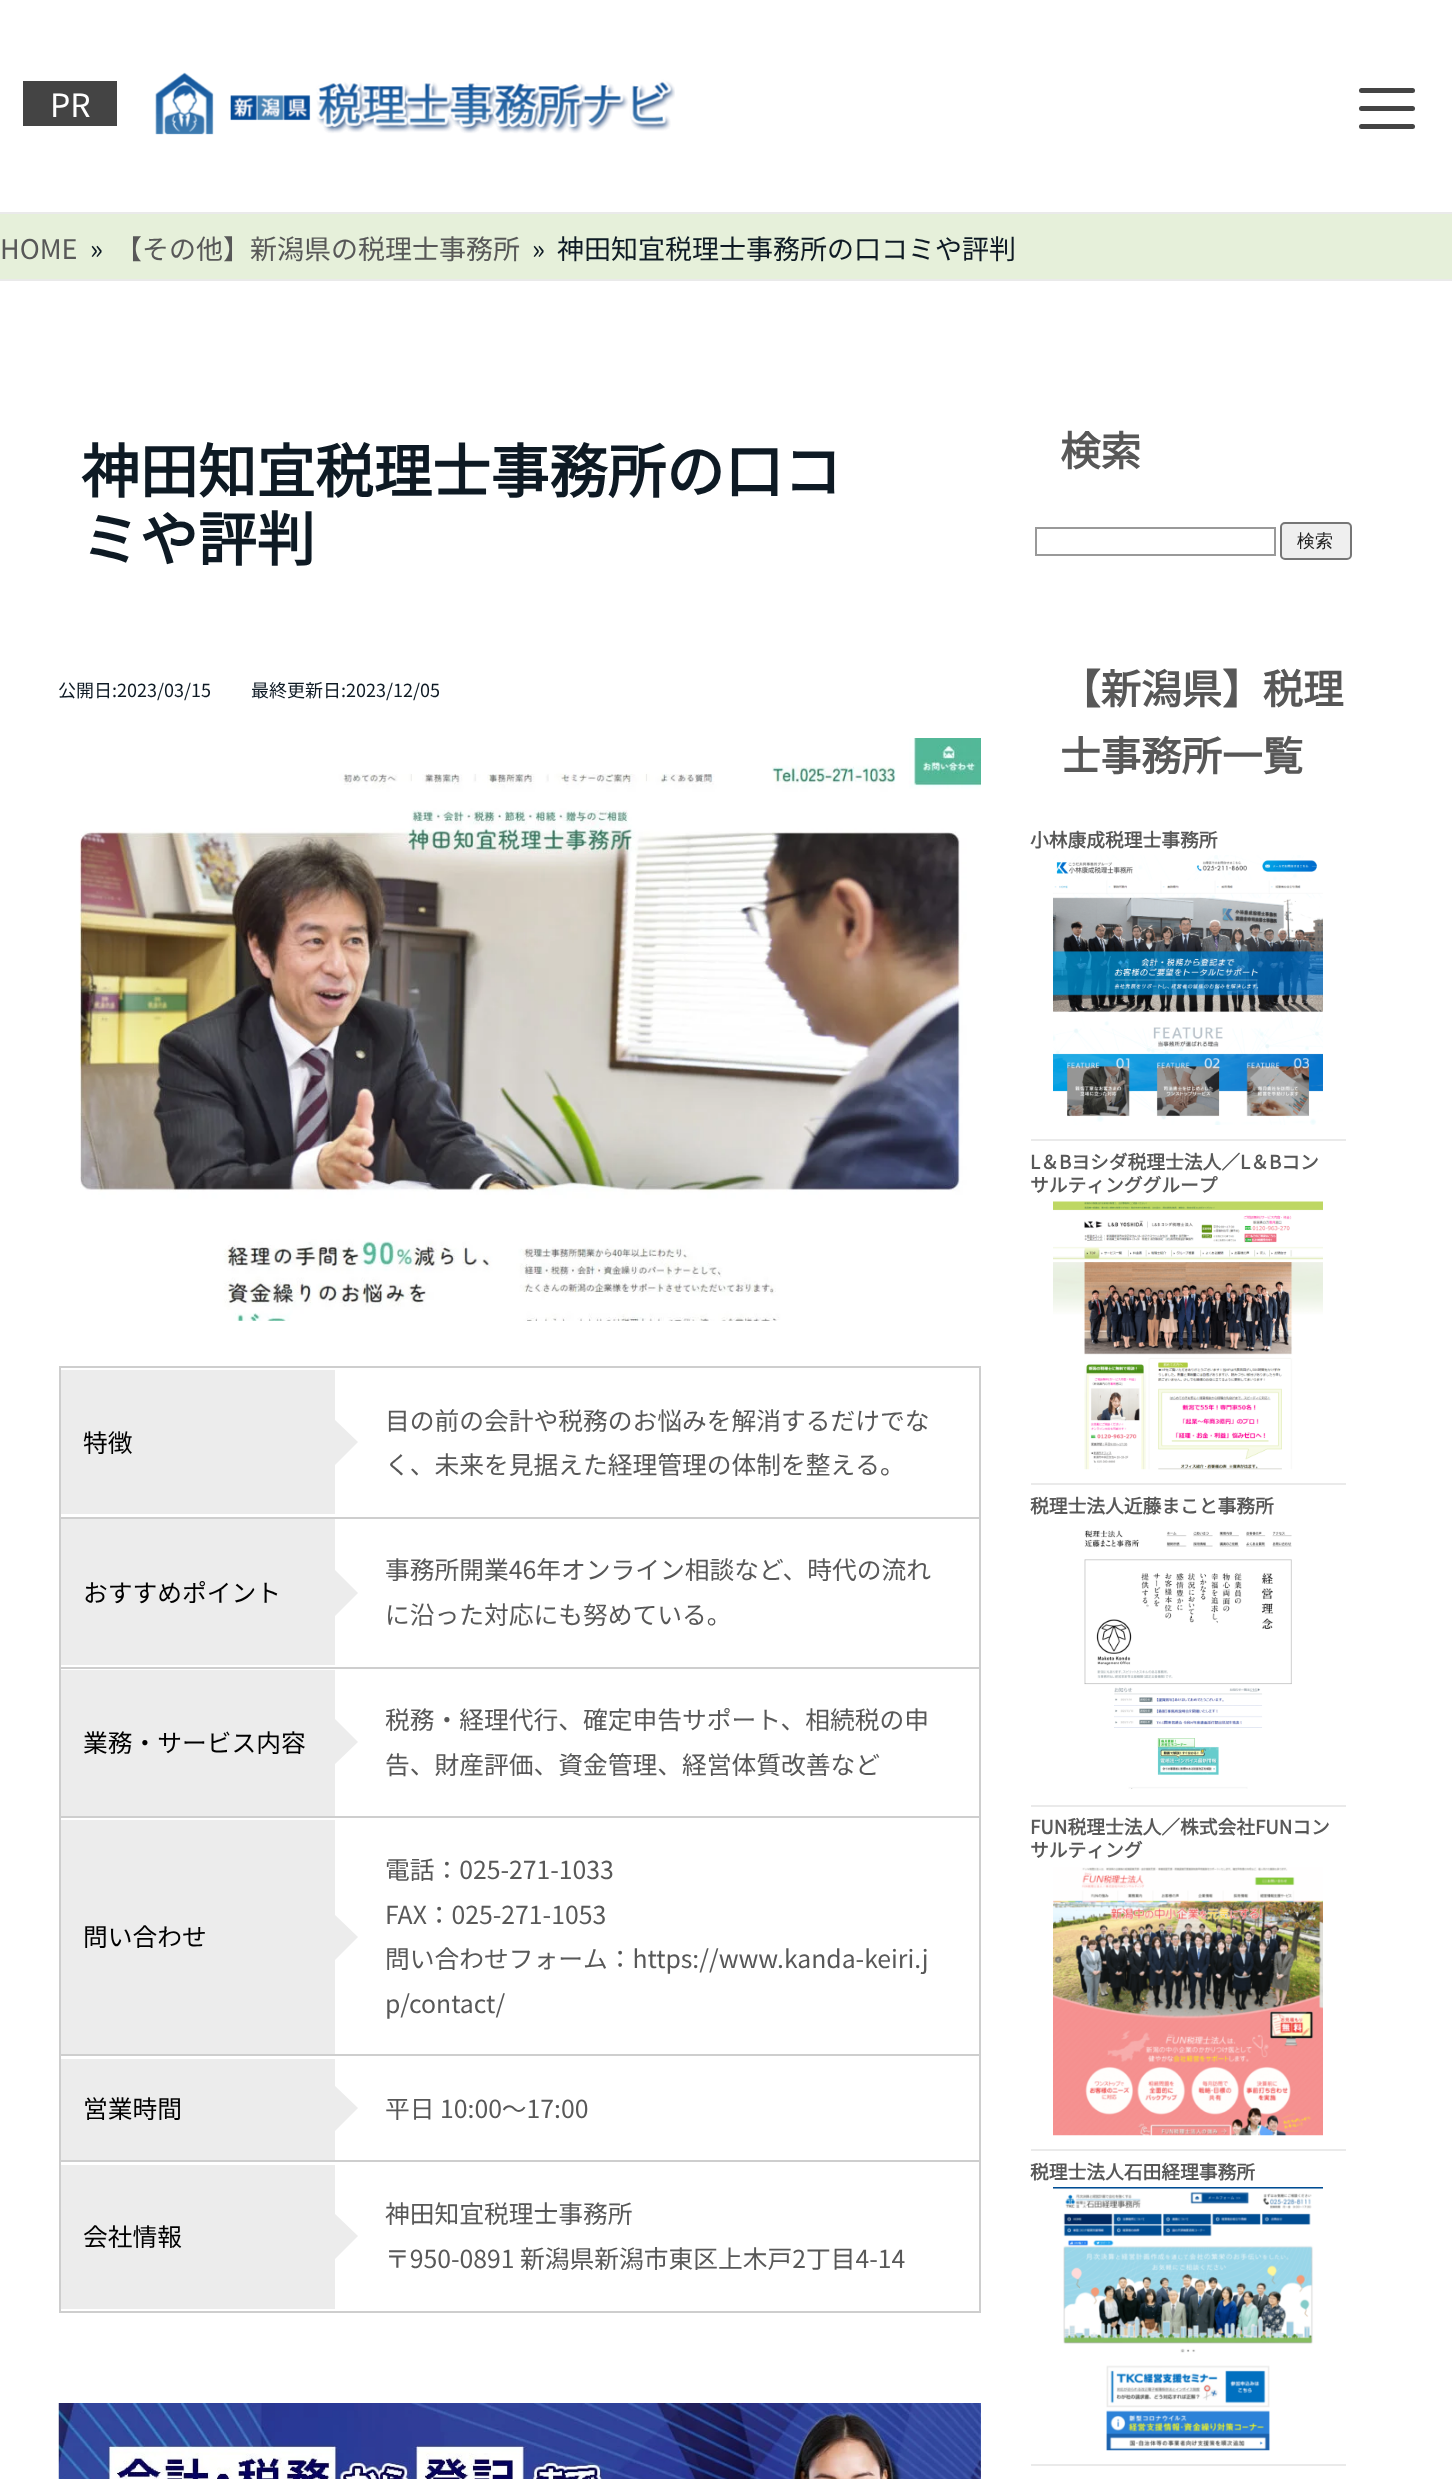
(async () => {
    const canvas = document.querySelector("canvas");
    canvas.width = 1452;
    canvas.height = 2479;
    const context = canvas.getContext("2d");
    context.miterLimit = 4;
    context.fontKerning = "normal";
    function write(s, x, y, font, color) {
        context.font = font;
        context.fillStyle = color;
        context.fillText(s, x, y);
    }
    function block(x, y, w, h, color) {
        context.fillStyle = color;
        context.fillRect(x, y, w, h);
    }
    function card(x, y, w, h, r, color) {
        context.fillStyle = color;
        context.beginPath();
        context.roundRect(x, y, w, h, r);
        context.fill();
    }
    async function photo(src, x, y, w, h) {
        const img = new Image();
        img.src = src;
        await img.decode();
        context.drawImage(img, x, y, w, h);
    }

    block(0, 0, 1452, 2479, "rgb(255, 255, 255)");
    block(23, 81, 94, 45, "rgb(68, 68, 68)");
    write("PR", 50, 117, "100 32px Noto Sans JP", "rgb(255, 255, 255)");
    await photo("media/1.png", 155, 72, 520, 63);
    card(1359, 106, 56, 5, 2.5, "rgb(68, 68, 68)");
    card(1359, 88, 56, 5, 2.5, "rgb(68, 68, 68)");
    card(1359, 124, 56, 5, 2.5, "rgb(68, 68, 68)");
    block(0, 214, 1452, 65, "rgb(230, 240, 218)");
    block(0, 212, 1452, 2, "rgb(234, 234, 234)");
    block(0, 279, 1452, 2, "rgb(234, 234, 234)");
    write("HOME", 0, 259, "100 27px Noto Sans JP", "rgb(88, 88, 88)");
    write("»", 90, 259, "100 27px Noto Sans JP", "rgb(14, 26, 36)");
    write("【その他】新潟県の税理士事務所", 115, 259, "100 27px Noto Sans JP", "rgb(88, 88, 88)");
    write("»  神田知宜税理士事務所の口コミや評判", 532, 259, "100 27px Noto Sans JP", "rgb(14, 26, 36)");
    write("神田知宜税理士事務所の口コ", 81, 493, "bold 58.5px Noto Sans JP", "rgb(14, 26, 36)");
    write("ミや評判", 81, 561, "bold 58.5px Noto Sans JP", "rgb(14, 26, 36)");
    write("公開日:2023/03/15　　 最終更新日:2023/12/05", 58, 697, "100 18px Noto Sans JP", "rgb(14, 26, 36)");
    await photo("media/2.png", 79, 738, 902, 583);
    block(59, 1366, 922, 2, "rgb(206, 206, 206)");
    block(59, 1517, 922, 2, "rgb(206, 206, 206)");
    block(59, 1667, 922, 2, "rgb(206, 206, 206)");
    block(59, 1816, 922, 2, "rgb(206, 206, 206)");
    block(59, 2054, 922, 2, "rgb(206, 206, 206)");
    block(59, 2160, 922, 2, "rgb(206, 206, 206)");
    block(979, 2160, 2, 153, "rgb(206, 206, 206)");
    block(59, 2311, 922, 2, "rgb(206, 206, 206)");
    block(59, 2160, 2, 153, "rgb(206, 206, 206)");
    block(59, 2054, 2, 108, "rgb(206, 206, 206)");
    block(59, 1816, 2, 241, "rgb(206, 206, 206)");
    block(59, 1667, 2, 151, "rgb(206, 206, 206)");
    block(59, 1517, 2, 153, "rgb(206, 206, 206)");
    block(59, 1366, 2, 153, "rgb(206, 206, 206)");
    block(61, 1370, 274, 144, "rgb(236, 236, 236)");
    write("特徴", 83, 1452, "100 24.75px Noto Sans JP", "rgb(0, 0, 0)");
    context.fillStyle = "rgb(236, 236, 236)";
    context.beginPath();
    context.moveTo(335, 1465);
    context.lineTo(335, 1420);
    context.lineTo(358, 1442);
    context.closePath();
    context.fill();
    block(979, 2054, 2, 108, "rgb(206, 206, 206)");
    block(979, 1816, 2, 241, "rgb(206, 206, 206)");
    block(979, 1667, 2, 151, "rgb(206, 206, 206)");
    block(979, 1517, 2, 153, "rgb(206, 206, 206)");
    block(979, 1366, 2, 153, "rgb(206, 206, 206)");
    write("目の前の会計や税務のお悩みを解消するだけでな", 385, 1430, "100 24.75px Noto Sans JP", "rgb(88, 88, 88)");
    write("く、未来を見据えた経理管理の体制を整える。", 385, 1474, "100 24.75px Noto Sans JP", "rgb(88, 88, 88)");
    block(61, 1519, 274, 146, "rgb(236, 236, 236)");
    write("おすすめポイント", 83, 1602, "100 24.75px Noto Sans JP", "rgb(0, 0, 0)");
    context.fillStyle = "rgb(236, 236, 236)";
    context.beginPath();
    context.moveTo(335, 1616);
    context.lineTo(335, 1570);
    context.lineTo(358, 1593);
    context.closePath();
    context.fill();
    write("事務所開業46年オンライン相談など、時代の流れ", 385, 1579, "100 24.75px Noto Sans JP", "rgb(88, 88, 88)");
    write("に沿った対応にも努めている。", 385, 1624, "100 24.75px Noto Sans JP", "rgb(88, 88, 88)");
    block(61, 1670, 274, 146, "rgb(236, 236, 236)");
    write("業務・サービス内容", 83, 1752, "100 24.75px Noto Sans JP", "rgb(0, 0, 0)");
    context.fillStyle = "rgb(236, 236, 236)";
    context.beginPath();
    context.moveTo(335, 1764);
    context.lineTo(335, 1719);
    context.lineTo(358, 1742);
    context.closePath();
    context.fill();
    write("税務・経理代行、確定申告サポート、相続税の申", 385, 1729, "100 24.75px Noto Sans JP", "rgb(88, 88, 88)");
    write("告、財産評価、資金管理、経営体質改善など", 385, 1774, "100 24.75px Noto Sans JP", "rgb(88, 88, 88)");
    block(61, 1820, 274, 234, "rgb(236, 236, 236)");
    write("問い合わせ", 83, 1946, "100 24.75px Noto Sans JP", "rgb(0, 0, 0)");
    context.fillStyle = "rgb(236, 236, 236)";
    context.beginPath();
    context.moveTo(335, 1960);
    context.lineTo(335, 1915);
    context.lineTo(358, 1937);
    context.closePath();
    context.fill();
    write("電話：025-271-1033", 385, 1879, "100 24.75px Noto Sans JP", "rgb(88, 88, 88)");
    write("FAX：025-271-1053", 385, 1924, "100 24.75px Noto Sans JP", "rgb(88, 88, 88)");
    write("問い合わせフォーム：https://www.kanda-keiri.j", 385, 1968, "100 24.75px Noto Sans JP", "rgb(88, 88, 88)");
    write("p/contact/", 385, 2013, "100 24.75px Noto Sans JP", "rgb(88, 88, 88)");
    block(61, 2059, 274, 101, "rgb(236, 236, 236)");
    write("営業時間", 83, 2118, "100 24.75px Noto Sans JP", "rgb(0, 0, 0)");
    context.fillStyle = "rgb(236, 236, 236)";
    context.beginPath();
    context.moveTo(335, 2131);
    context.lineTo(335, 2086);
    context.lineTo(358, 2108);
    context.closePath();
    context.fill();
    write("平日 10:00～17:00", 385, 2118, "100 24.75px Noto Sans JP", "rgb(88, 88, 88)");
    block(61, 2165, 274, 144, "rgb(236, 236, 236)");
    write("会社情報", 83, 2246, "100 24.75px Noto Sans JP", "rgb(0, 0, 0)");
    context.fillStyle = "rgb(236, 236, 236)";
    context.beginPath();
    context.moveTo(335, 2259);
    context.lineTo(335, 2214);
    context.lineTo(358, 2236);
    context.closePath();
    context.fill();
    write("神田知宜税理士事務所", 385, 2223, "100 24.75px Noto Sans JP", "rgb(88, 88, 88)");
    write("〒950-0891 新潟県新潟市東区上木戸2丁目4-14", 385, 2268, "100 24.75px Noto Sans JP", "rgb(88, 88, 88)");
    await photo("media/3.png", 58, 2403, 923, 76);
    write("検索", 1060, 466, "bold 40.5px Noto Sans JP", "rgb(88, 88, 88)");
    context.strokeStyle = "rgb(153, 153, 153)";
    context.lineWidth = 2;
    context.strokeRect(1036, 528, 239, 27);
    context.fillStyle = "rgb(239, 239, 239)";
    context.beginPath();
    context.roundRect(1281, 523, 70, 36, 4);
    context.fill();
    context.strokeStyle = "rgb(118, 118, 118)";
    context.stroke();
    write("検索", 1297, 547, "500 18px WenQuanYi Zen Hei", "rgb(34, 34, 34)");
    write("【新潟県】税理", 1060, 704, "bold 40.5px Noto Sans JP", "rgb(88, 88, 88)");
    write("士事務所一覧", 1060, 771, "bold 40.5px Noto Sans JP", "rgb(88, 88, 88)");
    block(1031, 1139, 315, 2, "rgb(234, 234, 234)");
    write("小林康成税理士事務所", 1030, 847, "bold 18.75px Noto Sans JP", "rgb(88, 88, 88)");
    await photo("media/4.png", 1053, 855, 270, 270);
    block(1031, 1483, 315, 2, "rgb(234, 234, 234)");
    write("L＆Bヨシダ税理士法人／L＆Bコン", 1030, 1169, "bold 18.75px Noto Sans JP", "rgb(88, 88, 88)");
    write("サルティンググループ", 1030, 1192, "bold 18.75px Noto Sans JP", "rgb(88, 88, 88)");
    await photo("media/5.png", 1053, 1201, 270, 269);
    block(1031, 1805, 315, 2, "rgb(234, 234, 234)");
    write("税理士法人近藤まこと事務所", 1030, 1513, "bold 18.75px Noto Sans JP", "rgb(88, 88, 88)");
    await photo("media/6.png", 1084, 1530, 208, 259);
    block(1031, 2149, 315, 2, "rgb(234, 234, 234)");
    write("FUN税理士法人／株式会社FUNコン", 1030, 1834, "bold 18.75px Noto Sans JP", "rgb(88, 88, 88)");
    write("サルティング", 1030, 1857, "bold 18.75px Noto Sans JP", "rgb(88, 88, 88)");
    await photo("media/7.png", 1053, 1867, 270, 269);
    block(1031, 2464, 315, 2, "rgb(234, 234, 234)");
    write("税理士法人石田経理事務所", 1030, 2179, "bold 18.75px Noto Sans JP", "rgb(88, 88, 88)");
    await photo("media/8.png", 1053, 2187, 270, 264);
})();
